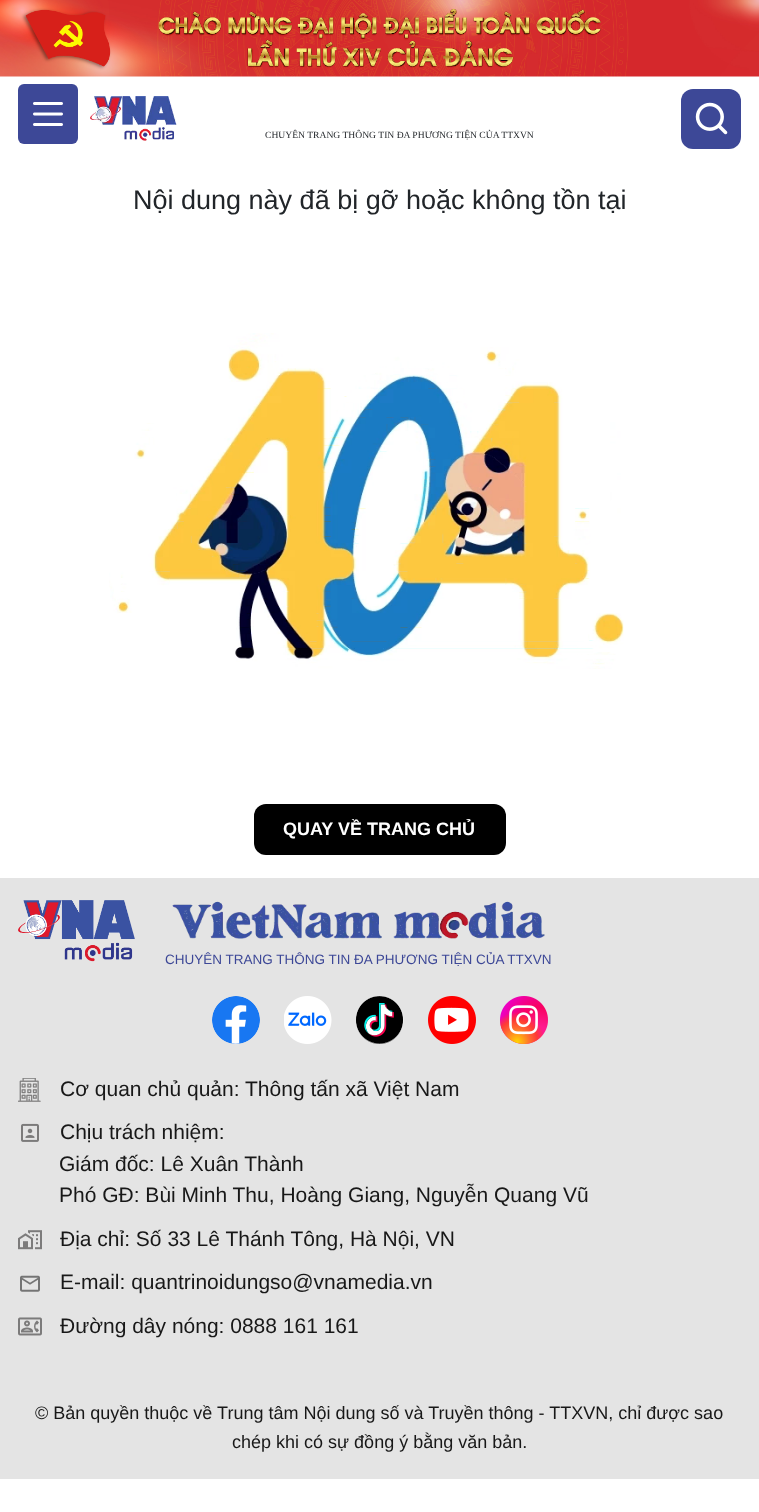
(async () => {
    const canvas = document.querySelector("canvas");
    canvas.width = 759;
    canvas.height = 1512;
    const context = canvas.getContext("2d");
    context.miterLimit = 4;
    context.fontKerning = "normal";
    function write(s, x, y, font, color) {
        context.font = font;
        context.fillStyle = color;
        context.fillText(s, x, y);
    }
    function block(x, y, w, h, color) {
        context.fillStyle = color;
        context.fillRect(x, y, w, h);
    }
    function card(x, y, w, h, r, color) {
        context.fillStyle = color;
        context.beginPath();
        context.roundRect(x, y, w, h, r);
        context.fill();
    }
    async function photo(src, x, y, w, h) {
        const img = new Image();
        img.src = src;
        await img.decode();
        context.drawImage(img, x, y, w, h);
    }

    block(0, 0, 759, 1512, "rgb(255, 255, 255)");
    await photo("media/1.png", 0, 0, 759, 77);
    card(18, 84, 60, 60, 6, "rgb(61, 72, 151)");
    await photo("media/2.png", 33, 102, 30, 24);
    await photo("media/3.png", 90, 96, 87, 45);
    write("CHUYÊN TRANG THÔNG TIN ĐA PHƯƠNG TIỆN CỦA TTXVN", 265, 138, "9.6px Liberation Serif", "rgb(33, 37, 41)");
    card(681, 89, 60, 60, 12, "rgb(61, 72, 151)");
    await photo("media/4.png", 695, 102, 33, 33);
    write("Nội dung này đã bị gỡ hoặc không tồn tại", 133, 209, "27px Liberation Sans", "rgb(33, 37, 41)");
    await photo("media/5.png", 109, 333, 515, 336);
    card(254, 804, 252, 51, 12, "rgb(0, 0, 0)");
    write("QUAY VỀ TRANG CHỦ", 283, 835, "bold 18px Liberation Sans", "rgb(255, 255, 255)");
    block(0, 878, 759, 601, "rgb(228, 228, 228)");
    await photo("media/6.png", 18, 900, 117, 62);
    await photo("media/7.png", 172, 901, 373, 38);
    write("CHUYÊN TRANG THÔNG TIN ĐA PHƯƠNG TIỆN CỦA TTXVN", 165, 964, "13.5px Liberation Sans", "rgb(61, 72, 151)");
    await photo("media/8.png", 212, 996, 48, 48);
    await photo("media/9.png", 284, 996, 48, 48);
    await photo("media/10.png", 356, 995, 48, 49);
    await photo("media/11.png", 428, 996, 48, 48);
    await photo("media/12.png", 500, 996, 48, 48);
    await photo("media/13.png", 18, 1078, 23, 24);
    write("Cơ quan chủ quản: Thông tấn xã Việt Nam", 60, 1096, "21px Liberation Sans", "rgb(24, 24, 24)");
    await photo("media/14.png", 21, 1123, 18, 19);
    write("Chịu trách nhiệm:", 60, 1139, "21px Liberation Sans", "rgb(24, 24, 24)");
    write("Giám đốc: Lê Xuân Thành", 59, 1171, "21px Liberation Sans", "rgb(24, 24, 24)");
    write("Phó GĐ: Bùi Minh Thu, Hoàng Giang, Nguyễn Quang Vũ", 59, 1202, "21px Liberation Sans", "rgb(24, 24, 24)");
    await photo("media/15.png", 18, 1230, 24, 20);
    write("Địa chỉ: Số 33 Lê Thánh Tông, Hà Nội, VN", 60, 1246, "21px Liberation Sans", "rgb(24, 24, 24)");
    await photo("media/16.png", 20, 1275, 20, 17);
    write("E-mail: quantrinoidungso@vnamedia.vn", 60, 1289, "21px Liberation Sans", "rgb(24, 24, 24)");
    await photo("media/17.png", 18, 1317, 24, 19);
    write("Đường dây nóng: 0888 161 161", 60, 1333, "21px Liberation Sans", "rgb(24, 24, 24)");
    write("© Bản quyền thuộc về Trung tâm Nội dung số và Truyền thông - TTXVN, chỉ được sao", 35, 1419, "18px Liberation Sans", "rgb(24, 24, 24)");
    write("chép khi có sự đồng ý bằng văn bản.", 232, 1448, "18px Liberation Sans", "rgb(24, 24, 24)");
})();
